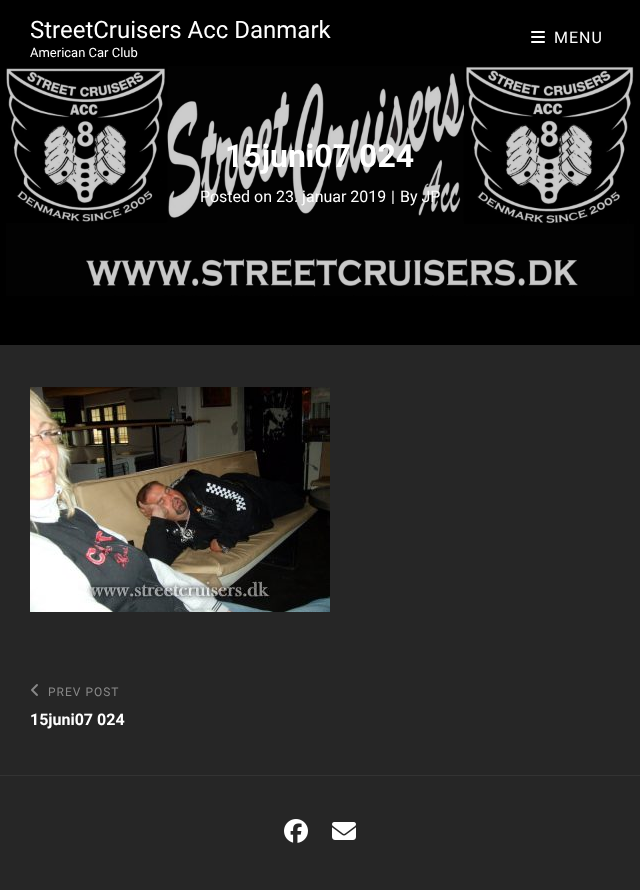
(async () => {
    const canvas = document.querySelector("canvas");
    canvas.width = 640;
    canvas.height = 890;
    const context = canvas.getContext("2d");
    context.miterLimit = 4;
    context.fontKerning = "normal";
    function write(s, x, y, font, color) {
        context.font = font;
        context.fillStyle = color;
        context.fillText(s, x, y);
    }
    function block(x, y, w, h, color) {
        context.fillStyle = color;
        context.fillRect(x, y, w, h);
    }
    async function photo(src, x, y, w, h) {
        const img = new Image();
        img.src = src;
        await img.decode();
        context.drawImage(img, x, y, w, h);
    }

    block(0, 0, 640, 890, "rgb(38, 38, 38)");
    block(0, 0, 640, 345, "rgb(0, 0, 0)");
    write("StreetCruisers Acc Danmark", 30, 38, "24px Roboto", "rgb(255, 255, 255)");
    write("American Car Club", 30, 57, "13px Roboto", "rgb(255, 255, 255)");
    await photo("media/1.png", 531, 31, 14, 12);
    context.letterSpacing = "1px";
    write("MENU", 554, 43, "16px Roboto", "rgb(255, 255, 255)");
    await photo("media/2.png", 6, 66, 628, 229);
    context.letterSpacing = "0px";
    write("15juni07 024", 225, 167, "bold 32px Roboto", "rgb(255, 255, 255)");
    write("Posted on 23. januar 2019", 200, 202, "16px Roboto", "rgb(255, 255, 255)");
    write("|", 391, 202, "16px Roboto", "rgb(255, 255, 255)");
    write("By JP", 400, 202, "16px Roboto", "rgb(255, 255, 255)");
    await photo("media/3.png", 6, 295, 628, 1);
    block(0, 775, 640, 1, "rgb(51, 51, 51)");
    await photo("media/4.png", 30, 387, 300, 225);
    await photo("media/5.png", 31, 684, 7, 12);
    context.letterSpacing = "1px";
    write("PREV POST", 48, 696, "12px Roboto", "rgb(136, 136, 136)");
    context.letterSpacing = "0px";
    write("15juni07 024", 30, 725, "bold 16px Roboto", "rgb(255, 255, 255)");
    await photo("media/6.png", 284, 819, 24, 24);
    await photo("media/7.png", 332, 822, 24, 18);
})();
